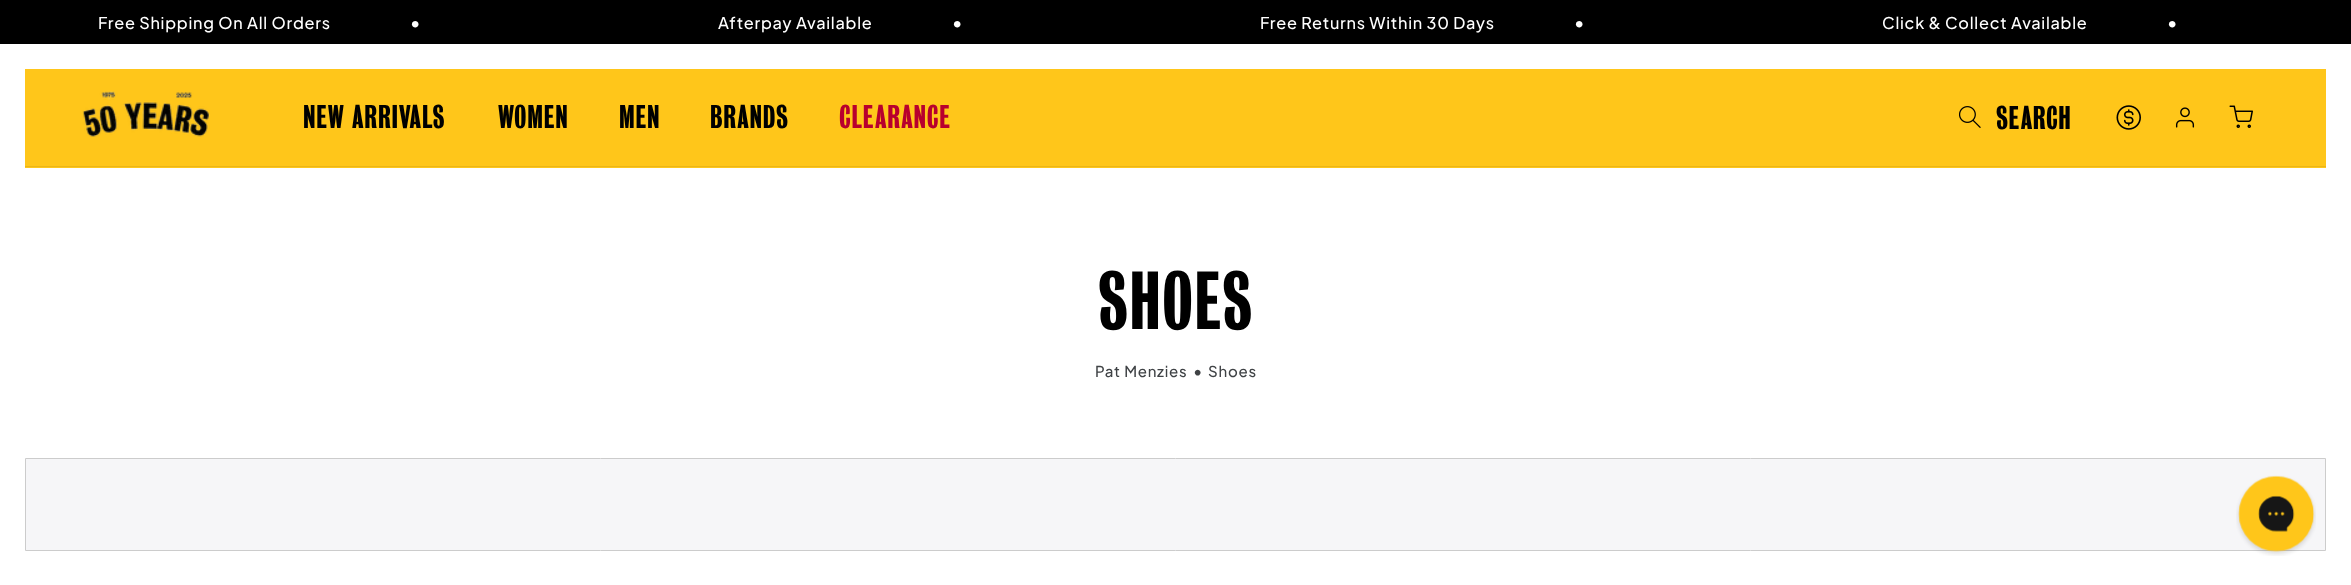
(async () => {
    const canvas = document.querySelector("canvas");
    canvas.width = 2351;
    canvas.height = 585;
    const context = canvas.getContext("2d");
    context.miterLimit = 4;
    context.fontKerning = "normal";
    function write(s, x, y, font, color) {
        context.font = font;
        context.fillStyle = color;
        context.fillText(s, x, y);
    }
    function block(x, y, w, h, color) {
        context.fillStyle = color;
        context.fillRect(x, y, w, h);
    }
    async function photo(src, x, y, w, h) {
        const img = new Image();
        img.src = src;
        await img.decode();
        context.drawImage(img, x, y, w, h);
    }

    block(0, 0, 2351, 585, "rgb(0, 0, 0)");
    context.letterSpacing = "0.75px";
    write("Free Shipping On All Orders", 98, 29, "500 16.25px Plus Jakarta Sans", "rgb(255, 255, 255)");
    write("•", 410, 29, "500 18px Plus Jakarta Sans", "rgb(255, 255, 255)");
    write("Afterpay Available", 718, 29, "500 16.25px Plus Jakarta Sans", "rgb(255, 255, 255)");
    write("•", 952, 29, "500 18px Plus Jakarta Sans", "rgb(255, 255, 255)");
    write("Free Returns Within 30 Days", 1260, 29, "500 16.25px Plus Jakarta Sans", "rgb(255, 255, 255)");
    write("•", 1574, 29, "500 18px Plus Jakarta Sans", "rgb(255, 255, 255)");
    write("Click & Collect Available", 1882, 29, "500 16.25px Plus Jakarta Sans", "rgb(255, 255, 255)");
    write("•", 2167, 29, "500 18px Plus Jakarta Sans", "rgb(255, 255, 255)");
    block(0, 44, 2351, 541, "rgb(255, 255, 255)");
    block(25, 69, 2301, 99, "rgb(255, 198, 26)");
    block(25, 166, 2301, 1, "rgb(235, 182, 24)");
    await photo("media/1.png", 82, 91, 128, 46);
    write("NEW ARRIVALS", 303, 128, "500 30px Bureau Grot", "rgb(0, 0, 0)");
    write("WOMEN", 498, 128, "500 30px Bureau Grot", "rgb(0, 0, 0)");
    write("MEN", 619, 128, "500 30px Bureau Grot", "rgb(0, 0, 0)");
    write("BRANDS", 710, 128, "500 30px Bureau Grot", "rgb(0, 0, 0)");
    write("CLEARANCE", 839, 128, "500 30px Bureau Grot", "rgb(184, 0, 46)");
    await photo("media/2.png", 1959, 106, 22, 22);
    context.letterSpacing = "0.5px";
    write("SEARCH", 1996, 129, "500 30px Bureau Grot", "rgb(0, 0, 0)");
    await photo("media/3.png", 2116, 105, 25, 25);
    await photo("media/4.png", 2175, 107, 20, 21);
    await photo("media/5.png", 2229, 105, 24, 23);
    context.letterSpacing = "1.25px";
    write("SHOES", 1098, 329, "500 75px Bureau Grot", "rgb(0, 0, 0)");
    context.letterSpacing = "0.75px";
    write("Pat Menzies", 1095, 377, "500 15px Plus Jakarta Sans", "rgb(63, 66, 69)");
    write("•", 1193, 377, "500 16.25px Plus Jakarta Sans", "rgb(63, 66, 69)");
    write("Shoes", 1208, 377, "500 15px Plus Jakarta Sans", "rgb(63, 66, 69)");
    context.fillStyle = "rgb(246, 246, 248)";
    context.beginPath();
    context.rect(25.5, 458.5, 2300, 92);
    context.fill();
    context.strokeStyle = "rgb(204, 204, 204)";
    context.stroke();
    await photo("media/6.png", 2236, 475, 80, 81);
})();
